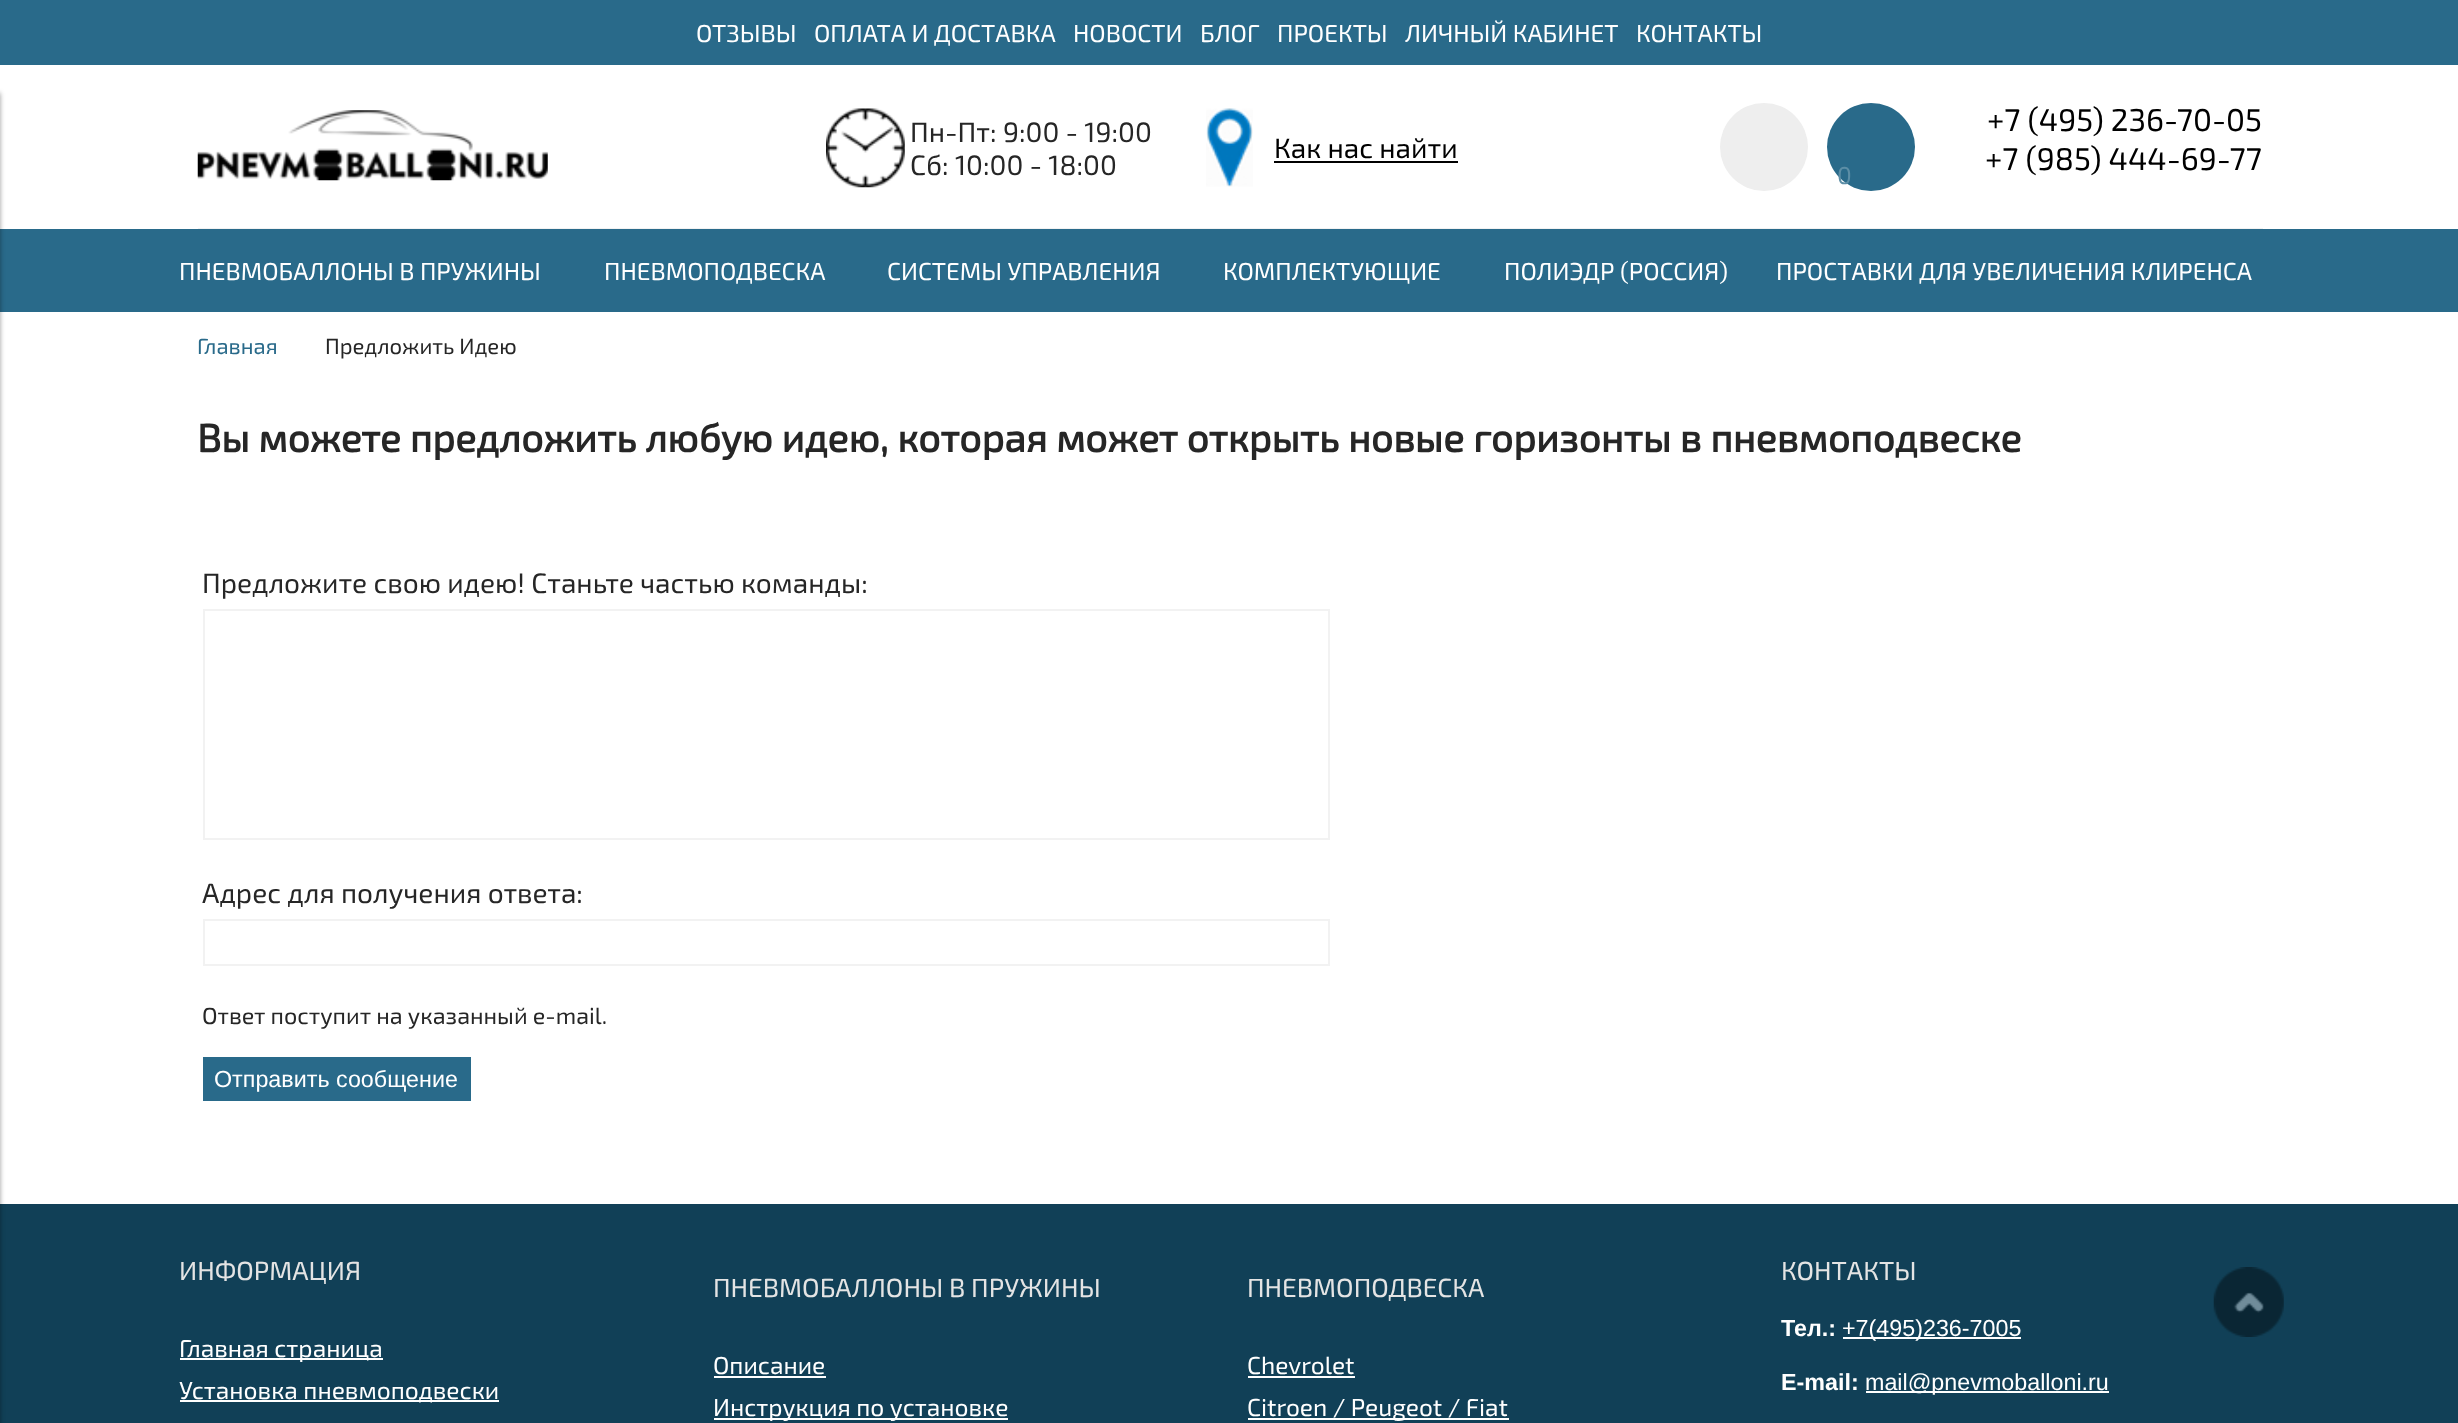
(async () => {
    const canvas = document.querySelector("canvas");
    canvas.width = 2458;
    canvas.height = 1423;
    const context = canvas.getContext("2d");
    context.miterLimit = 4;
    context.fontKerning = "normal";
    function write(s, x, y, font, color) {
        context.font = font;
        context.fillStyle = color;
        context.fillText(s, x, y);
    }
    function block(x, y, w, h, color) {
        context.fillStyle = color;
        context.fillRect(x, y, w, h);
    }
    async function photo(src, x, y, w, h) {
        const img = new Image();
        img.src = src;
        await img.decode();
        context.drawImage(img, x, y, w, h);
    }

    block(0, 0, 2458, 1423, "rgb(255, 255, 255)");
    block(0, 0, 2458, 65, "rgb(41, 106, 138)");
    write("ОТЗЫВЫ", 696, 42, "24.5px 'Exo 2'", "rgb(255, 255, 255)");
    write("ОПЛАТА И ДОСТАВКА", 814, 42, "24.5px 'Exo 2'", "rgb(255, 255, 255)");
    write("НОВОСТИ", 1073, 42, "24.5px 'Exo 2'", "rgb(255, 255, 255)");
    write("БЛОГ", 1200, 42, "24.5px 'Exo 2'", "rgb(255, 255, 255)");
    write("ПРОЕКТЫ", 1277, 42, "24.5px 'Exo 2'", "rgb(255, 255, 255)");
    write("ЛИЧНЫЙ КАБИНЕТ", 1405, 42, "24.5px 'Exo 2'", "rgb(255, 255, 255)");
    write("КОНТАКТЫ", 1636, 42, "24.5px 'Exo 2'", "rgb(255, 255, 255)");
    block(0, 229, 2458, 83, "rgb(41, 106, 138)");
    block(0, 1204, 2458, 219, "rgb(17, 64, 87)");
    context.fillStyle = "rgba(0, 0, 0, 0.4)";
    context.filter = "blur(2.5px)";
    context.beginPath();
    context.rect(-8, 93, 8, 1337);
    context.fill();
    context.filter = "none";
    await photo("media/1.png", 197, 110, 351, 71);
    await photo("media/2.png", 826, 108, 79, 80);
    write("Пн-Пт: 9:00 - 19:00", 910, 142, "28px 'Exo 2'", "rgb(38, 38, 38)");
    write("Сб: 10:00 - 18:00", 910, 175, "28px 'Exo 2'", "rgb(38, 38, 38)");
    await photo("media/3.png", 1206, 108, 47, 79);
    write("Как нас найти", 1274, 158, "28px 'Exo 2'", "rgb(0, 0, 0)");
    block(1274, 161, 184, 2, "rgb(0, 0, 0)");
    context.fillStyle = "rgb(238, 238, 238)";
    context.beginPath();
    context.arc(1764, 147, 44, 0, Math.PI * 2);
    context.fill();
    context.fillStyle = "rgb(41, 106, 138)";
    context.beginPath();
    context.arc(1871, 147, 44, 0, Math.PI * 2);
    context.fill();
    write("0", 1837, 184, "24.5px 'Exo 2'", "rgb(92, 142, 166)");
    write("+7 (495) 236-70-05", 1987, 131, "31.5px 'Exo 2'", "rgb(0, 0, 0)");
    write("+7 (985) 444-69-77", 1985, 170, "31.5px 'Exo 2'", "rgb(0, 0, 0)");
    block(198, 228, 2065, 1, "rgb(242, 242, 242)");
    write("ПНЕВМОБАЛЛОНЫ В ПРУЖИНЫ", 179, 280, "24.5px 'Exo 2'", "rgb(255, 255, 255)");
    write("ПНЕВМОПОДВЕСКА", 604, 280, "24.5px 'Exo 2'", "rgb(255, 255, 255)");
    write("СИСТЕМЫ УПРАВЛЕНИЯ", 887, 280, "24.5px 'Exo 2'", "rgb(255, 255, 255)");
    write("КОМПЛЕКТУЮЩИЕ", 1223, 280, "24.5px 'Exo 2'", "rgb(255, 255, 255)");
    write("ПОЛИЭДР (РОССИЯ)", 1504, 280, "24.5px 'Exo 2'", "rgb(255, 255, 255)");
    write("ПРОСТАВКИ ДЛЯ УВЕЛИЧЕНИЯ КЛИРЕНСА", 1776, 280, "24.5px 'Exo 2'", "rgb(255, 255, 255)");
    write("Главная", 197, 354, "22px 'Exo 2'", "rgb(41, 106, 138)");
    write("Предложить Идею", 325, 354, "22px 'Exo 2'", "rgb(38, 38, 38)");
    write("Вы можете предложить любую идею, которая может открыть новые горизонты в пневмоподвеске", 197, 452, "bold 39.2px 'Exo 2'", "rgb(38, 38, 38)");
    write("Предложите свою идею! Станьте частью команды:", 202, 593, "28px 'Exo 2'", "rgb(38, 38, 38)");
    context.strokeStyle = "rgb(242, 242, 242)";
    context.lineWidth = 2;
    context.strokeRect(204, 610, 1125, 229);
    write("Адрес для получения ответа:", 202, 903, "28px 'Exo 2'", "rgb(38, 38, 38)");
    context.strokeRect(204, 920, 1125, 45);
    write("Ответ поступит на указанный e-mail.", 202, 1024, "23.3px 'Exo 2'", "rgb(38, 38, 38)");
    block(203, 1057, 268, 44, "rgb(41, 106, 138)");
    write("Отправить сообщение", 214, 1087, "23.3px Liberation Sans", "rgb(255, 255, 255)");
    write("ИНФОРМАЦИЯ", 179, 1280, "26.25px 'Exo 2'", "rgb(228, 228, 228)");
    block(180, 1358, 203, 2, "rgb(255, 255, 255)");
    write("Главная страница", 179, 1357, "24.5px 'Exo 2'", "rgb(255, 255, 255)");
    block(180, 1400, 319, 2, "rgb(255, 255, 255)");
    write("Установка пневмоподвески", 179, 1399, "24.5px 'Exo 2'", "rgb(255, 255, 255)");
    write("ПНЕВМОБАЛЛОНЫ В ПРУЖИНЫ", 713, 1297, "26.25px 'Exo 2'", "rgb(228, 228, 228)");
    write("Описание", 713, 1374, "24.5px 'Exo 2'", "rgb(255, 255, 255)");
    block(714, 1376, 112, 2, "rgb(255, 255, 255)");
    block(714, 1418, 294, 2, "rgb(255, 255, 255)");
    write("Инструкция по установке", 713, 1416, "24.5px 'Exo 2'", "rgb(255, 255, 255)");
    write("ПНЕВМОПОДВЕСКА", 1247, 1297, "26.25px 'Exo 2'", "rgb(228, 228, 228)");
    write("Chevrolet", 1247, 1374, "24.5px 'Exo 2'", "rgb(255, 255, 255)");
    block(1248, 1376, 107, 2, "rgb(255, 255, 255)");
    block(1248, 1418, 261, 2, "rgb(255, 255, 255)");
    write("Citroen / Peugeot / Fiat", 1247, 1416, "24.5px 'Exo 2'", "rgb(255, 255, 255)");
    write("КОНТАКТЫ", 1781, 1280, "26.25px 'Exo 2'", "rgb(228, 228, 228)");
    write("Тел.:", 1781, 1336, "bold 23.3px Liberation Sans", "rgb(255, 255, 255)");
    block(1843, 1337, 178, 2, "rgb(255, 255, 255)");
    write("+7(495)236-7005", 1842, 1336, "23.3px Liberation Sans", "rgb(255, 255, 255)");
    write("E-mail:", 1781, 1390, "bold 23.3px Liberation Sans", "rgb(255, 255, 255)");
    block(1866, 1391, 243, 2, "rgb(255, 255, 255)");
    write("mail@pnevmoballoni.ru", 1865, 1390, "23.3px Liberation Sans", "rgb(255, 255, 255)");
    await photo("media/4.png", 2213, 1267, 71, 70);
})();
